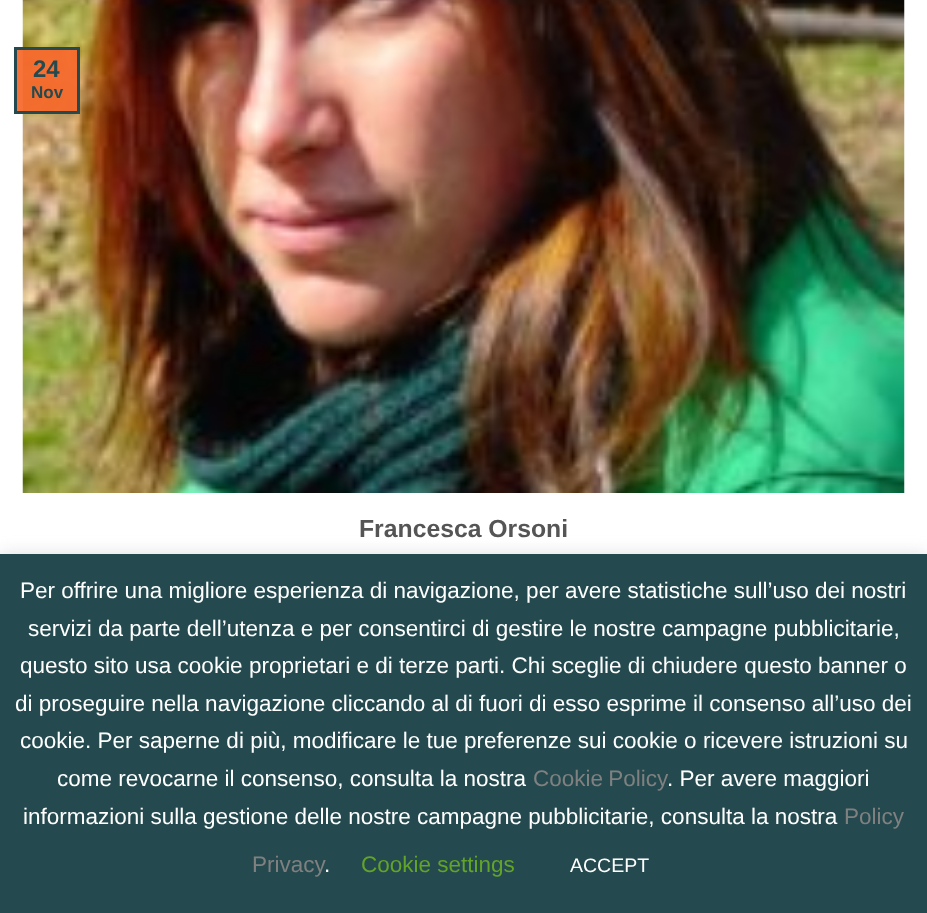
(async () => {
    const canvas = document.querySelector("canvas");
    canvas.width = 927;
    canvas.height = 913;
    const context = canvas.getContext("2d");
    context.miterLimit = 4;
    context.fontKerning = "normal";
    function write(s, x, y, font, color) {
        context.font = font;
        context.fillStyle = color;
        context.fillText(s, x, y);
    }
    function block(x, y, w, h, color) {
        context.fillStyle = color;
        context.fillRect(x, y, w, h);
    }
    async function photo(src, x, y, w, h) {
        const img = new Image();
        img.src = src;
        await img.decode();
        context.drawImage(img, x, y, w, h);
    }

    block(0, 0, 927, 913, "rgb(255, 255, 255)");
    await photo("media/1.png", 22, 0, 883, 493);
    context.fillStyle = "rgba(246, 105, 45, 0.94)";
    context.beginPath();
    context.rect(15.5, 48.5, 63, 64);
    context.fill();
    context.strokeStyle = "rgb(36, 74, 79)";
    context.lineWidth = 3;
    context.stroke();
    write("24", 33, 77, "bold 24px Liberation Sans", "rgb(36, 74, 79)");
    write("Nov", 31, 98, "bold 17px Liberation Sans", "rgb(36, 74, 79)");
    write("Francesca Orsoni", 359, 537, "bold 24.75px Liberation Sans", "rgb(85, 85, 85)");
    context.fillStyle = "rgba(172, 171, 171, 0.3)";
    context.filter = "blur(7.5px)";
    context.beginPath();
    context.rect(0, 552, 927, 360);
    context.fill();
    context.filter = "none";
    block(0, 554, 927, 359, "rgb(36, 74, 79)");
    write("Per offrire una migliore esperienza di navigazione, per avere statistiche sull’uso dei nostri", 20, 598, "22.5px Liberation Sans", "rgb(255, 255, 255)");
    write("servizi da parte dell’utenza e per consentirci di gestire le nostre campagne pubblicitarie,", 28, 636, "22.5px Liberation Sans", "rgb(255, 255, 255)");
    write("questo sito usa cookie proprietari e di terze parti. Chi sceglie di chiudere questo banner o", 20, 673, "22.5px Liberation Sans", "rgb(255, 255, 255)");
    write("di proseguire nella navigazione cliccando al di fuori di esso esprime il consenso all’uso dei", 15, 711, "22.5px Liberation Sans", "rgb(255, 255, 255)");
    write("cookie. Per saperne di più, modificare le tue preferenze sui cookie o ricevere istruzioni su", 20, 748, "22.5px Liberation Sans", "rgb(255, 255, 255)");
    write("come revocarne il consenso, consulta la nostra", 57, 786, "22.5px Liberation Sans", "rgb(255, 255, 255)");
    context.wordSpacing = "-1px";
    write("Cookie Policy", 533, 786, "22.5px Liberation Sans", "rgb(128, 128, 128)");
    context.wordSpacing = "0px";
    write(". Per avere maggiori", 667, 786, "22.5px Liberation Sans", "rgb(255, 255, 255)");
    write("informazioni sulla gestione delle nostre campagne pubblicitarie, consulta la nostra", 23, 824, "22.5px Liberation Sans", "rgb(255, 255, 255)");
    write("Policy", 844, 824, "22.5px Liberation Sans", "rgb(128, 128, 128)");
    write("Privacy", 252, 872, "22.5px Liberation Sans", "rgb(128, 128, 128)");
    write(".", 324, 872, "22.5px Liberation Sans", "rgb(255, 255, 255)");
    write("Cookie settings", 361, 872, "22.5px Liberation Sans", "rgb(98, 163, 41)");
    write("ACCEPT", 570, 872, "19.5px Liberation Sans", "rgb(255, 255, 255)");
})();
